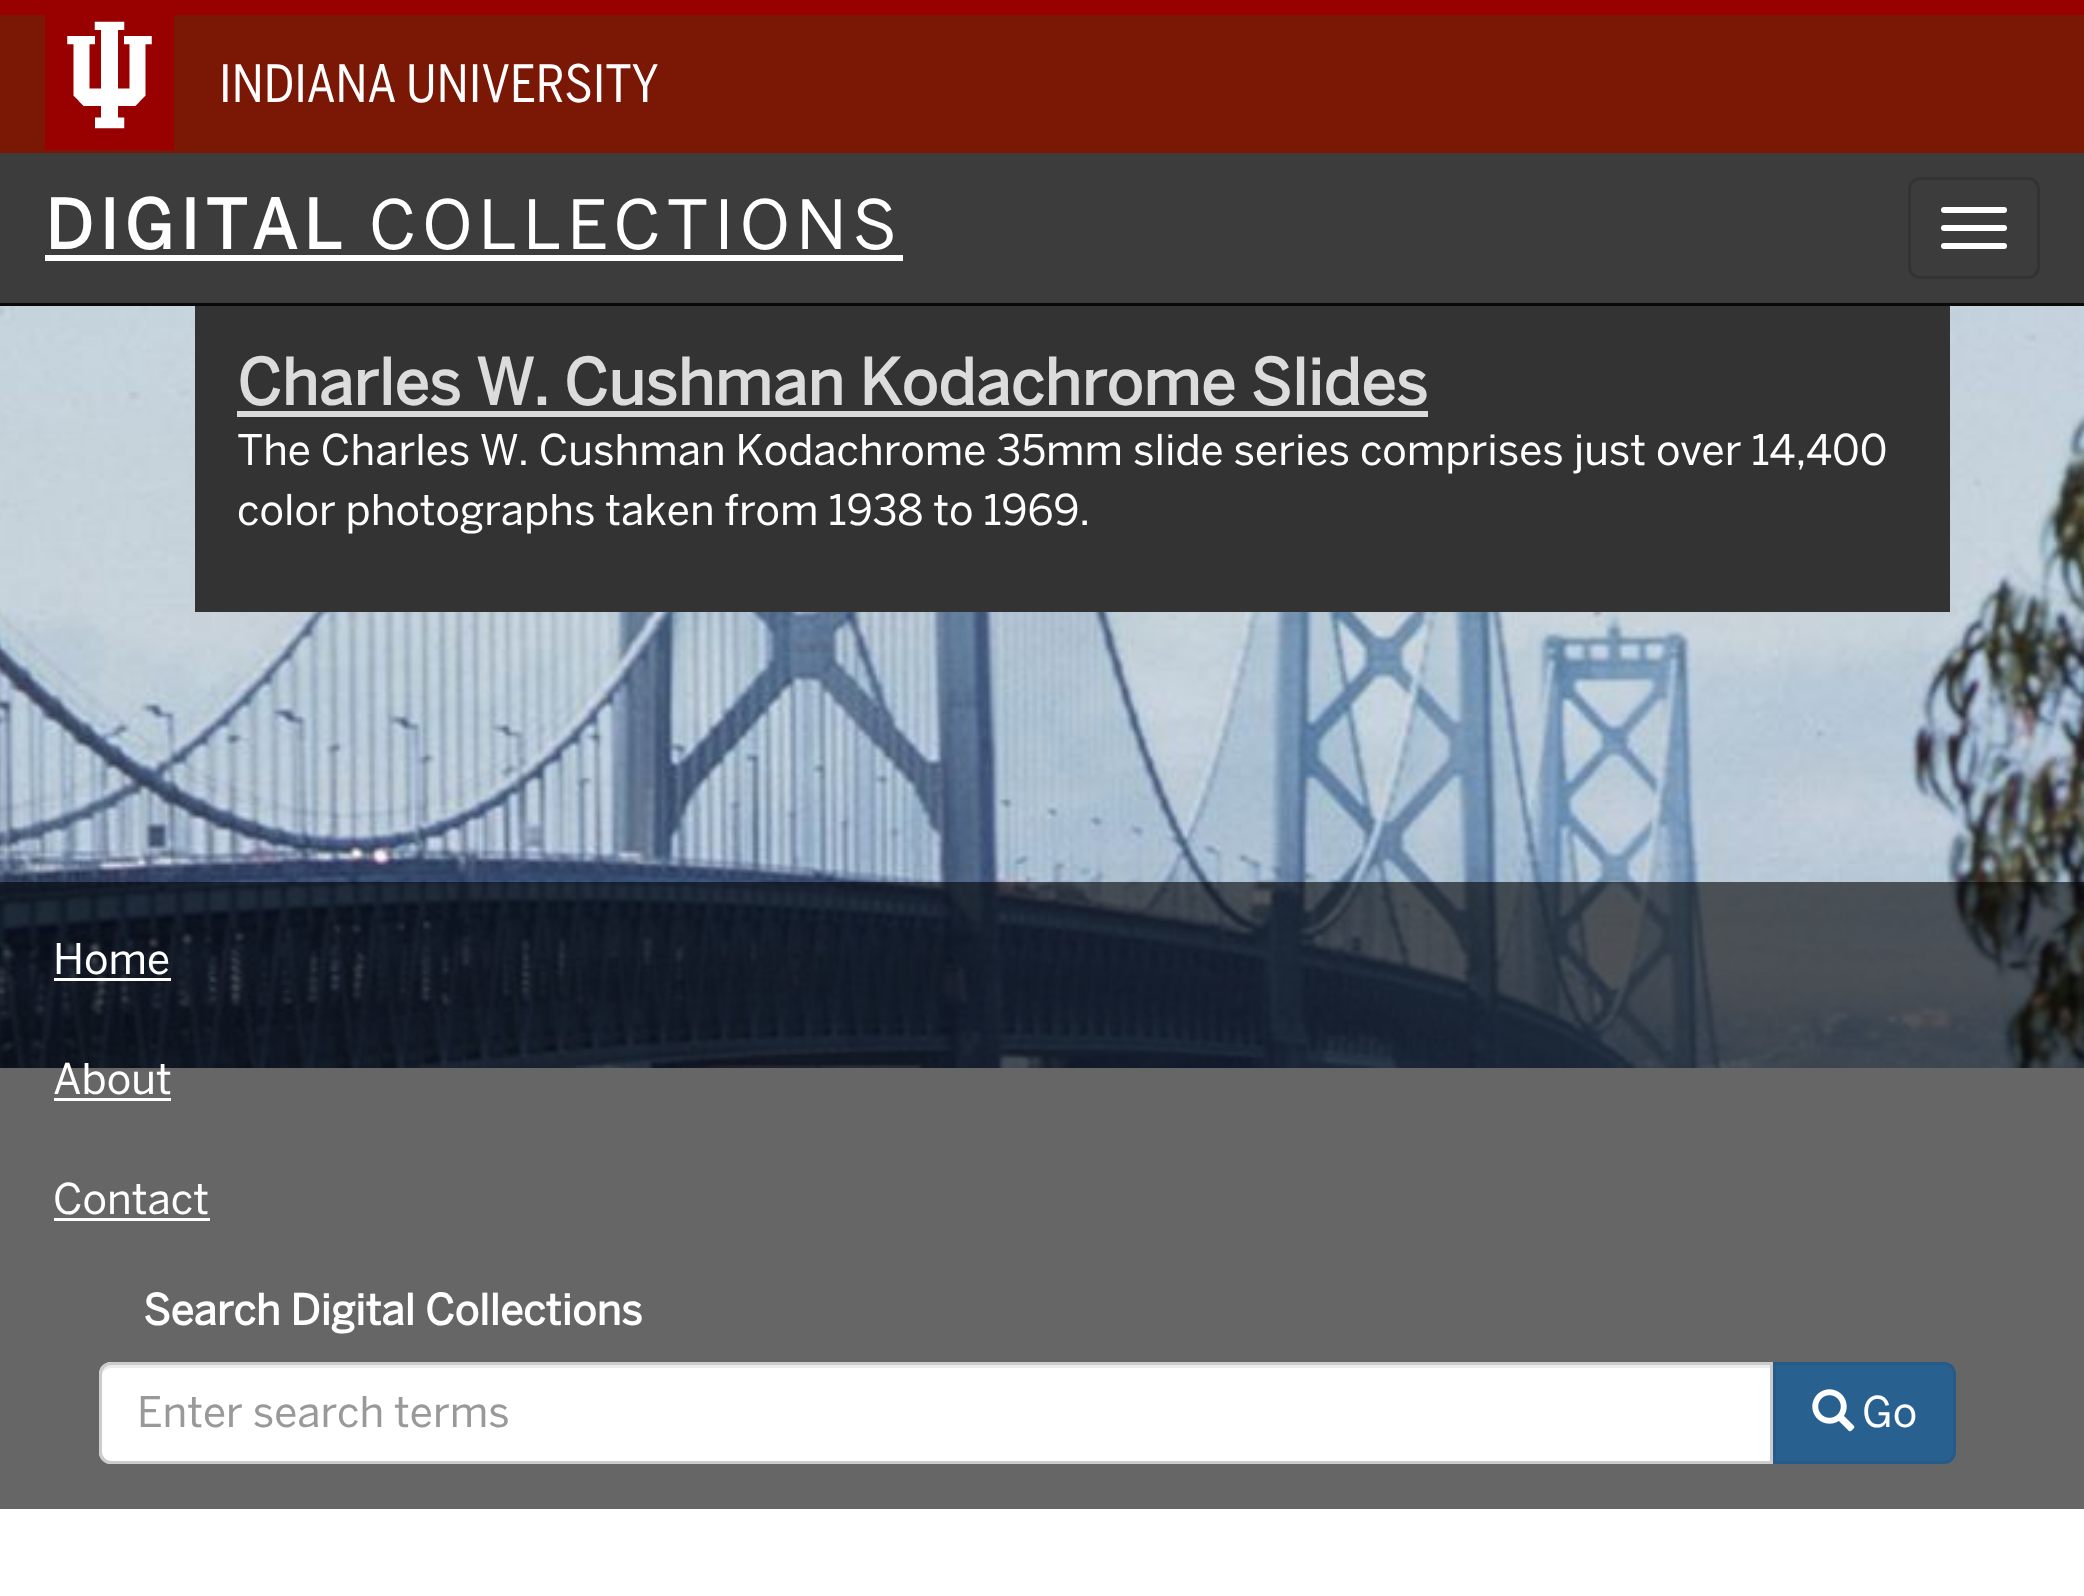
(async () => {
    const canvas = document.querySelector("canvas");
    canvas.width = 2084;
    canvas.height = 1596;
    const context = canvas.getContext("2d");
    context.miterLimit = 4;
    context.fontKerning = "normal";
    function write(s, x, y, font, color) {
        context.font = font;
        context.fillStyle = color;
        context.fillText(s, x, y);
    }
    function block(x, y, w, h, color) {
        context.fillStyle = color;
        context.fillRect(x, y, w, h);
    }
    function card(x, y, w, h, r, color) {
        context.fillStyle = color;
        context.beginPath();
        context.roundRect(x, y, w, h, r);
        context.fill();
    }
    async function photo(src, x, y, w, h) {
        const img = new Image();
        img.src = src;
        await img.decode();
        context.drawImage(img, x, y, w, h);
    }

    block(0, 0, 2084, 1596, "rgb(255, 255, 255)");
    block(0, 15, 2084, 138, "rgb(122, 23, 5)");
    block(0, 0, 2084, 15, "rgb(153, 0, 0)");
    await photo("media/1.png", 45, 15, 129, 135);
    write("INDIANA UNIVERSITY", 219, 102, "51px 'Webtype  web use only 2'", "rgb(255, 255, 255)");
    block(0, 153, 2084, 150, "rgb(60, 60, 60)");
    block(0, 303, 2084, 3, "rgb(9, 9, 9)");
    context.letterSpacing = "6px";
    write("DIGITAL", 45, 249, "bold 67.25px 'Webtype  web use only'", "rgb(255, 255, 255)");
    block(45, 255, 858, 6, "rgb(255, 255, 255)");
    write("COLLECTIONS", 369, 249, "67.25px 'Webtype  web use only'", "rgb(255, 255, 255)");
    context.beginPath();
    context.roundRect(1909.5, 178.5, 129, 99, 10.5);
    context.strokeStyle = "rgb(51, 51, 51)";
    context.lineWidth = 3;
    context.stroke();
    card(1941, 207, 66, 6, 3, "rgb(255, 255, 255)");
    card(1941, 225, 66, 6, 3, "rgb(255, 255, 255)");
    card(1941, 243, 66, 6, 3, "rgb(255, 255, 255)");
    await photo("media/2.png", 0, 306, 2084, 762);
    block(195, 306, 1755, 306, "rgb(51, 51, 51)");
    context.letterSpacing = "0px";
    write("Charles W. Cushman Kodachrome Slides", 237, 405, "bold 63px 'Webtype  web use only'", "rgb(220, 220, 220)");
    block(237, 411, 1191, 6, "rgb(220, 220, 220)");
    write("The Charles W. Cushman Kodachrome 35mm slide series comprises just over 14,400", 237, 465, "42px 'Webtype  web use only'", "rgb(255, 255, 255)");
    write("color photographs taken from 1938 to 1969.", 237, 525, "42px 'Webtype  web use only'", "rgb(255, 255, 255)");
    block(0, 882, 2084, 627, "rgba(0, 0, 0, 0.6)");
    write("Home", 53, 974, "42px 'Webtype  web use only'", "rgb(255, 255, 255)");
    block(54, 978, 117, 3, "rgb(255, 255, 255)");
    write("About", 53, 1094, "42px 'Webtype  web use only'", "rgb(255, 255, 255)");
    block(54, 1098, 117, 3, "rgb(255, 255, 255)");
    write("Contact", 53, 1214, "42px 'Webtype  web use only'", "rgb(255, 255, 255)");
    block(54, 1218, 156, 3, "rgb(255, 255, 255)");
    write("Search Digital Collections", 143, 1325, "bold 42px 'Webtype  web use only'", "rgb(255, 255, 255)");
    context.beginPath();
    context.roundRect(99, 1362, 1674, 102, [12, 0, 0, 12]);
    context.fill();
    context.fillStyle = "rgb(236, 236, 236)";
    context.beginPath();
    context.moveTo(111, 1368);
    context.lineTo(1770, 1368);
    context.lineTo(1770, 1365);
    context.lineTo(111, 1365);
    context.bezierCurveTo(106, 1365, 102, 1369, 102, 1374);
    context.lineTo(102, 1377);
    context.bezierCurveTo(102, 1372, 106, 1368, 111, 1368);
    context.closePath();
    context.fill();
    context.beginPath();
    context.roundRect(100.5, 1363.5, 1671, 99, [10.5, 0, 0, 10.5]);
    context.strokeStyle = "rgb(204, 204, 204)";
    context.stroke();
    write("Enter search terms", 137, 1427, "42px 'Webtype  web use only'", "rgb(153, 153, 153)");
    context.fillStyle = "rgb(40, 96, 144)";
    context.beginPath();
    context.roundRect(1774.5, 1363.5, 180, 99, [0, 10.5, 10.5, 0]);
    context.fill();
    context.strokeStyle = "rgb(38, 91, 137)";
    context.stroke();
    await photo("media/3.png", 1812, 1389, 43, 43);
    write("Go", 1862, 1427, "42px 'Webtype  web use only'", "rgb(255, 255, 255)");
})();
